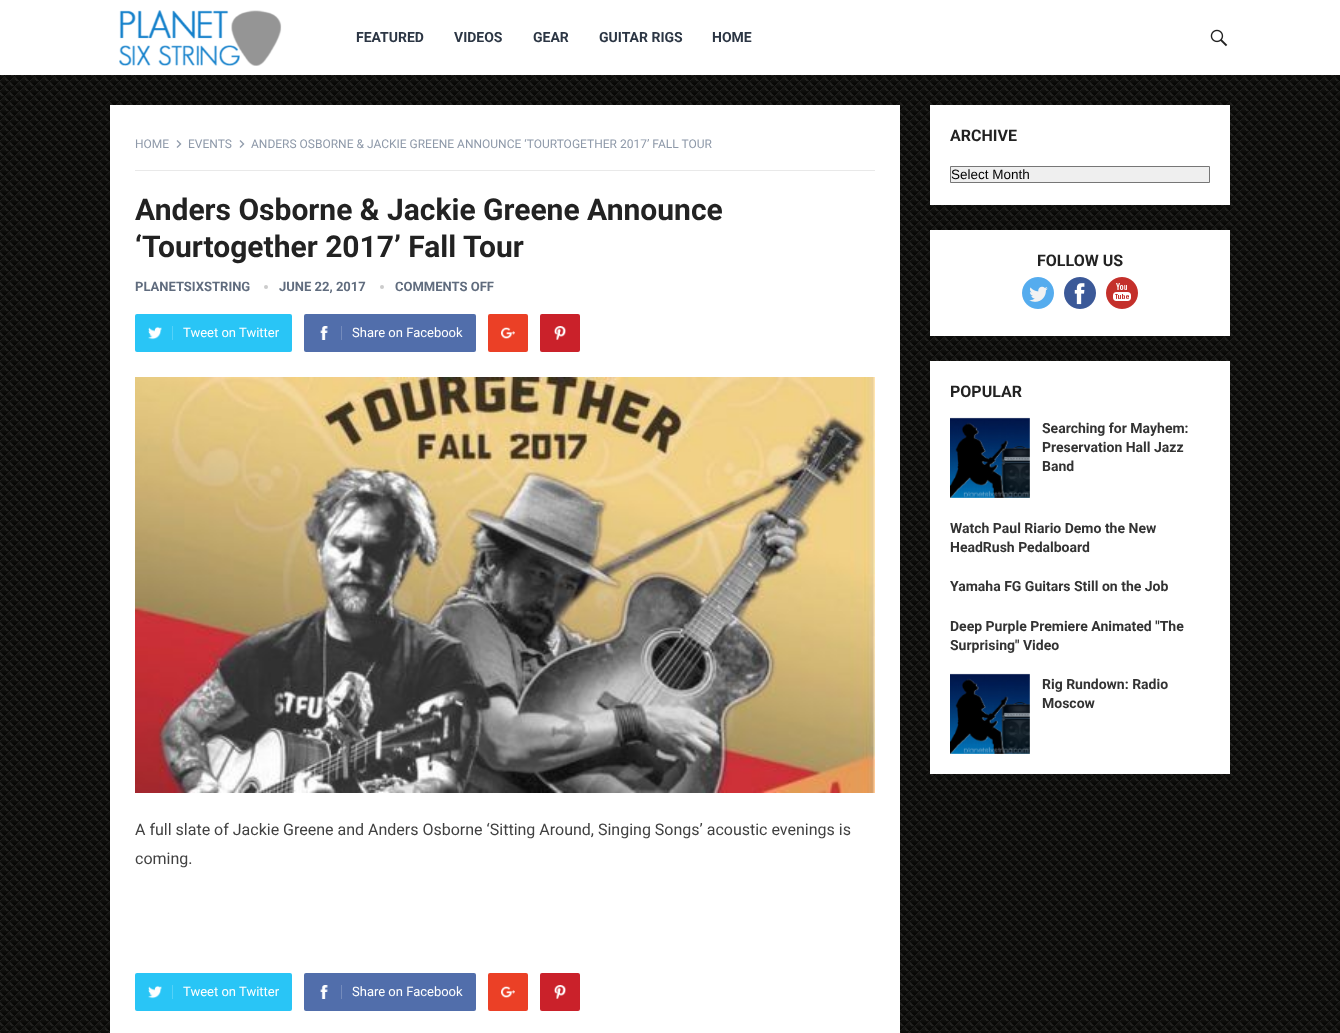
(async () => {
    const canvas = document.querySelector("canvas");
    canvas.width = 1340;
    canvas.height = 1033;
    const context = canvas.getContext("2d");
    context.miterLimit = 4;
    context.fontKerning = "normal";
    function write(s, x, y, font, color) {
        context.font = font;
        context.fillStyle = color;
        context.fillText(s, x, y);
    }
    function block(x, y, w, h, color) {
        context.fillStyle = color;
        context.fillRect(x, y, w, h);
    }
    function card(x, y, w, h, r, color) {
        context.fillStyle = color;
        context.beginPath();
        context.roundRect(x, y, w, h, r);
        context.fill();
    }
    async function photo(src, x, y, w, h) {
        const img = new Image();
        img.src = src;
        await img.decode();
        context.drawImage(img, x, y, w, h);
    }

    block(0, 0, 1340, 1033, "rgb(255, 255, 255)");
    await photo("media/1.png", 0, 75, 1340, 958);
    await photo("media/2.png", 119, 10, 163, 56);
    write("FEATURED", 356, 42, "bold 14px Roboto", "rgb(44, 54, 68)");
    write("VIDEOS", 454, 42, "bold 14px Roboto", "rgb(44, 54, 68)");
    write("GEAR", 533, 42, "bold 14px Roboto", "rgb(44, 54, 68)");
    write("GUITAR RIGS", 599, 42, "bold 14px Roboto", "rgb(44, 54, 68)");
    write("HOME", 712, 42, "bold 14px Roboto", "rgb(44, 54, 68)");
    await photo("media/3.png", 1210, 29, 18, 18);
    block(110, 105, 790, 928, "rgb(255, 255, 255)");
    block(135, 170, 740, 1, "rgb(233, 233, 233)");
    write("HOME", 135, 148, "12px Roboto", "rgb(142, 153, 169)");
    await photo("media/4.png", 176, 140, 6, 8);
    write("EVENTS", 188, 148, "12px Roboto", "rgb(142, 153, 169)");
    await photo("media/4.png", 239, 140, 6, 8);
    write("ANDERS OSBORNE & JACKIE GREENE ANNOUNCE ‘TOURTOGETHER 2017’ FALL TOUR", 251, 148, "12px Roboto", "rgb(142, 153, 169)");
    write("Anders Osborne & Jackie Greene Announce", 135, 220, "bold 30px Roboto", "rgb(34, 34, 34)");
    write("‘Tourtogether 2017’ Fall Tour", 135, 257, "bold 30px Roboto", "rgb(34, 34, 34)");
    write("PLANETSIXSTRING", 135, 291, "bold 13px Roboto", "rgb(96, 108, 126)");
    context.fillStyle = "rgb(204, 204, 204)";
    context.beginPath();
    context.arc(266, 287, 2, 0, Math.PI * 2);
    context.fill();
    write("JUNE 22, 2017", 279, 291, "bold 13px Roboto", "rgb(96, 108, 126)");
    context.fillStyle = "rgb(204, 204, 204)";
    context.beginPath();
    context.arc(382, 287, 2, 0, Math.PI * 2);
    context.fill();
    write("COMMENTS OFF", 395, 291, "bold 13px Roboto", "rgb(96, 108, 126)");
    card(135, 314, 157, 38, 2, "rgb(41, 197, 246)");
    await photo("media/5.png", 148, 326, 14, 14);
    block(172, 326, 1, 14, "rgb(84, 209, 248)");
    write("Tweet on Twitter", 183, 337, "13px Roboto", "rgb(255, 255, 255)");
    card(304, 314, 172, 38, 2, "rgb(81, 110, 171)");
    await photo("media/6.png", 320, 326, 8, 14);
    block(341, 326, 1, 14, "rgb(116, 139, 188)");
    write("Share on Facebook", 352, 337, "13px Roboto", "rgb(255, 255, 255)");
    card(488, 314, 40, 38, 2, "rgb(235, 64, 38)");
    await photo("media/7.png", 501, 327, 14, 12);
    card(540, 314, 40, 38, 2, "rgb(202, 33, 42)");
    await photo("media/8.png", 554, 326, 12, 14);
    await photo("media/9.png", 135, 377, 740, 416);
    write("A full slate of Jackie Greene and Anders Osborne ‘Sitting Around, Singing Songs’ acoustic evenings is", 135, 835, "16px Roboto", "rgb(65, 65, 65)");
    write("coming.", 135, 864, "16px Roboto", "rgb(65, 65, 65)");
    card(135, 973, 157, 38, 2, "rgb(41, 197, 246)");
    await photo("media/5.png", 148, 985, 14, 14);
    block(172, 985, 1, 14, "rgb(84, 209, 248)");
    write("Tweet on Twitter", 183, 996, "13px Roboto", "rgb(255, 255, 255)");
    card(304, 973, 172, 38, 2, "rgb(81, 110, 171)");
    await photo("media/6.png", 320, 985, 8, 14);
    block(341, 985, 1, 14, "rgb(116, 139, 188)");
    write("Share on Facebook", 352, 996, "13px Roboto", "rgb(255, 255, 255)");
    card(488, 973, 40, 38, 2, "rgb(235, 64, 38)");
    await photo("media/7.png", 501, 986, 14, 12);
    card(540, 973, 40, 38, 2, "rgb(202, 33, 42)");
    await photo("media/8.png", 554, 985, 12, 14);
    block(930, 105, 300, 100, "rgb(255, 255, 255)");
    write("ARCHIVE", 950, 141, "bold 16px Roboto", "rgb(34, 34, 34)");
    context.fillStyle = "rgb(239, 239, 239)";
    context.beginPath();
    context.rect(950.5, 166.5, 259, 16);
    context.fill();
    context.strokeStyle = "rgb(118, 118, 118)";
    context.stroke();
    write("Select Month", 951, 179, "13.5px Liberation Sans", "rgb(0, 0, 0)");
    block(930, 230, 300, 106, "rgb(255, 255, 255)");
    write("FOLLOW US", 1037, 266, "bold 16px Roboto", "rgb(34, 34, 34)");
    await photo("media/10.png", 1022, 277, 32, 32);
    await photo("media/11.png", 1064, 277, 32, 32);
    await photo("media/12.png", 1106, 277, 32, 32);
    block(930, 361, 300, 413, "rgb(255, 255, 255)");
    write("POPULAR", 950, 397, "bold 16px Roboto", "rgb(34, 34, 34)");
    await photo("media/13.png", 950, 417, 80, 81);
    write("Searching for Mayhem:", 1042, 433, "bold 14px Roboto", "rgb(51, 51, 51)");
    write("Preservation Hall Jazz", 1042, 452, "bold 14px Roboto", "rgb(51, 51, 51)");
    write("Band", 1042, 471, "bold 14px Roboto", "rgb(51, 51, 51)");
    write("Watch Paul Riario Demo the New", 950, 533, "bold 14px Roboto", "rgb(51, 51, 51)");
    write("HeadRush Pedalboard", 950, 552, "bold 14px Roboto", "rgb(51, 51, 51)");
    write("Yamaha FG Guitars Still on the Job", 950, 591, "bold 14px Roboto", "rgb(51, 51, 51)");
    write("Deep Purple Premiere Animated \"The", 950, 631, "bold 14px Roboto", "rgb(51, 51, 51)");
    write("Surprising\" Video", 950, 650, "bold 14px Roboto", "rgb(51, 51, 51)");
    await photo("media/13.png", 950, 673, 80, 81);
    write("Rig Rundown: Radio", 1042, 689, "bold 14px Roboto", "rgb(51, 51, 51)");
    write("Moscow", 1042, 708, "bold 14px Roboto", "rgb(51, 51, 51)");
})();
